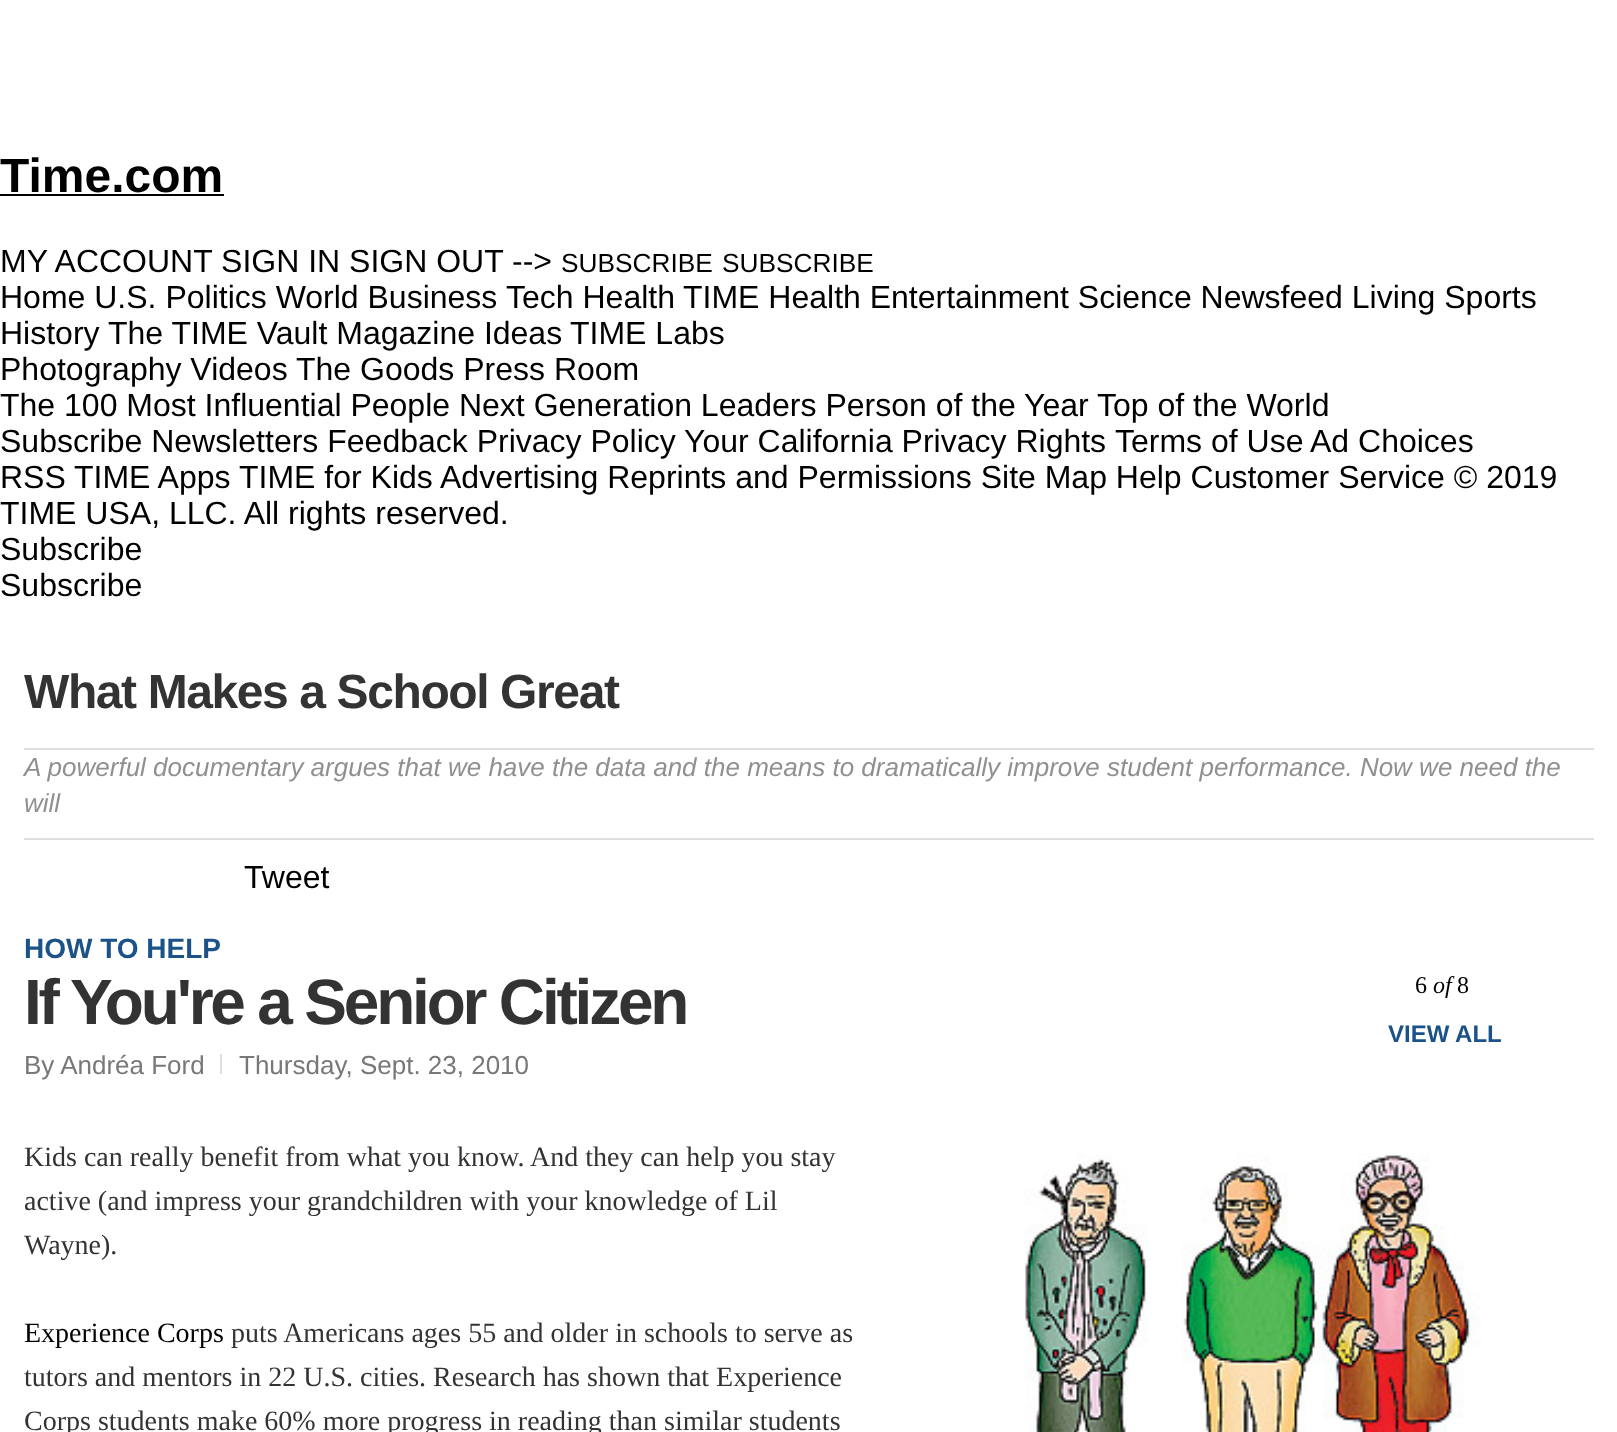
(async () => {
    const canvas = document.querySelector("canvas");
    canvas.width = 1617;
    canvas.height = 1432;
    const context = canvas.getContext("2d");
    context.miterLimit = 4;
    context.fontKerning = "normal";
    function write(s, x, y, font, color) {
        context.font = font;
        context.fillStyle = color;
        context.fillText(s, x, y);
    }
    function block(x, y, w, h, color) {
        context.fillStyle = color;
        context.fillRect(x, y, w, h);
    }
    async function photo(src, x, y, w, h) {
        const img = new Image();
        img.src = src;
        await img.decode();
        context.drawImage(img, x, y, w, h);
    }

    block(0, 0, 1617, 1432, "rgb(255, 255, 255)");
    write("Time.com", 0, 192, "bold 48px Liberation Sans", "rgb(0, 0, 0)");
    block(0, 194, 224, 2, "rgb(0, 0, 0)");
    write("MY ACCOUNT SIGN IN SIGN OUT", 0, 272, "32px Liberation Sans", "rgb(0, 0, 0)");
    write("-->", 512, 272, "32px Liberation Sans", "rgb(0, 0, 0)");
    write("SUBSCRIBE", 561, 272, "26.25px Liberation Sans", "rgb(0, 0, 0)");
    write("SUBSCRIBE", 722, 272, "26.25px Liberation Sans", "rgb(0, 0, 0)");
    write("Home U.S. Politics World Business", 0, 308, "32px Liberation Sans", "rgb(0, 0, 0)");
    write("Tech Health", 506, 308, "32px Liberation Sans", "rgb(0, 0, 0)");
    write("TIME Health Entertainment Science Newsfeed Living Sports", 683, 308, "32px Liberation Sans", "rgb(0, 0, 0)");
    write("History", 0, 344, "32px Liberation Sans", "rgb(0, 0, 0)");
    write("The TIME Vault Magazine Ideas", 108, 344, "32px Liberation Sans", "rgb(0, 0, 0)");
    write("TIME Labs", 570, 344, "32px Liberation Sans", "rgb(0, 0, 0)");
    write("Photography Videos", 0, 380, "32px Liberation Sans", "rgb(0, 0, 0)");
    write("The Goods Press Room", 296, 380, "32px Liberation Sans", "rgb(0, 0, 0)");
    write("The 100 Most Influential People Next Generation Leaders Person of the Year", 0, 416, "32px Liberation Sans", "rgb(0, 0, 0)");
    write("Top of the World", 1097, 416, "32px Liberation Sans", "rgb(0, 0, 0)");
    write("Subscribe Newsletters Feedback Privacy Policy", 0, 452, "32px Liberation Sans", "rgb(0, 0, 0)");
    write("Your California Privacy Rights", 684, 452, "32px Liberation Sans", "rgb(0, 0, 0)");
    write("Terms of Use", 1115, 452, "32px Liberation Sans", "rgb(0, 0, 0)");
    write("Ad Choices", 1310, 452, "32px Liberation Sans", "rgb(0, 0, 0)");
    write("RSS", 0, 488, "32px Liberation Sans", "rgb(0, 0, 0)");
    write("TIME Apps", 74, 488, "32px Liberation Sans", "rgb(0, 0, 0)");
    write("TIME for Kids", 239, 488, "32px Liberation Sans", "rgb(0, 0, 0)");
    write("Advertising Reprints and Permissions Site Map Help Customer Service © 2019", 440, 488, "32px Liberation Sans", "rgb(0, 0, 0)");
    write("TIME USA, LLC. All rights reserved.", 0, 524, "32px Liberation Sans", "rgb(0, 0, 0)");
    write("Subscribe", 0, 560, "32px Liberation Sans", "rgb(0, 0, 0)");
    write("Subscribe", 0, 596, "32px Liberation Sans", "rgb(0, 0, 0)");
    block(24, 748, 1570, 2, "rgb(222, 222, 222)");
    context.letterSpacing = "-1.4px";
    write("What Makes a School Great", 24, 708, "bold 48px Liberation Sans", "rgb(51, 51, 51)");
    context.letterSpacing = "0px";
    write("A powerful documentary argues that we have the data and the means to dramatically improve student performance. Now we need the", 24, 776, "italic 26px Liberation Sans", "rgb(145, 144, 144)");
    write("will", 24, 812, "italic 26px Liberation Sans", "rgb(145, 144, 144)");
    block(24, 838, 1570, 2, "rgb(222, 222, 222)");
    write("Tweet", 244, 888, "32px Liberation Sans", "rgb(0, 0, 0)");
    write("HOW TO HELP", 24, 958, "bold 28px Liberation Sans", "rgb(27, 82, 136)");
    context.letterSpacing = "-3.2px";
    write("If You're a Senior Citizen", 24, 1024, "bold 64px Liberation Sans", "rgb(51, 51, 51)");
    context.letterSpacing = "0px";
    write("By Andréa Ford", 24, 1074, "26px Liberation Sans", "rgb(121, 119, 119)");
    block(220, 1054, 2, 20, "rgb(222, 222, 222)");
    write("Thursday, Sept. 23, 2010", 239, 1074, "26px Liberation Sans", "rgb(121, 119, 119)");
    write("Kids can really benefit from what you know. And they can help you stay", 24, 1166, "28px Liberation Serif", "rgb(51, 51, 51)");
    write("active (and impress your grandchildren with your knowledge of Lil", 24, 1210, "28px Liberation Serif", "rgb(51, 51, 51)");
    write("Wayne).", 24, 1254, "28px Liberation Serif", "rgb(51, 51, 51)");
    await photo("media/1.png", 1024, 1153, 457, 279);
    write("Experience Corps", 24, 1342, "28px Liberation Serif", "rgb(0, 0, 0)");
    write("puts Americans ages 55 and older in schools to serve as", 231, 1342, "28px Liberation Serif", "rgb(51, 51, 51)");
    write("tutors and mentors in 22 U.S. cities. Research has shown that Experience", 24, 1386, "28px Liberation Serif", "rgb(51, 51, 51)");
    write("Corps students make 60% more progress in reading than similar students", 24, 1430, "28px Liberation Serif", "rgb(51, 51, 51)");
    write("6", 1415, 993, "24px Liberation Serif", "rgb(0, 0, 0)");
    write("of", 1433, 993, "italic 24px Liberation Serif", "rgb(0, 0, 0)");
    write("8", 1457, 993, "24px Liberation Serif", "rgb(0, 0, 0)");
    write("VIEW ALL", 1388, 1042, "bold 24px Liberation Sans", "rgb(27, 82, 136)");
})();
